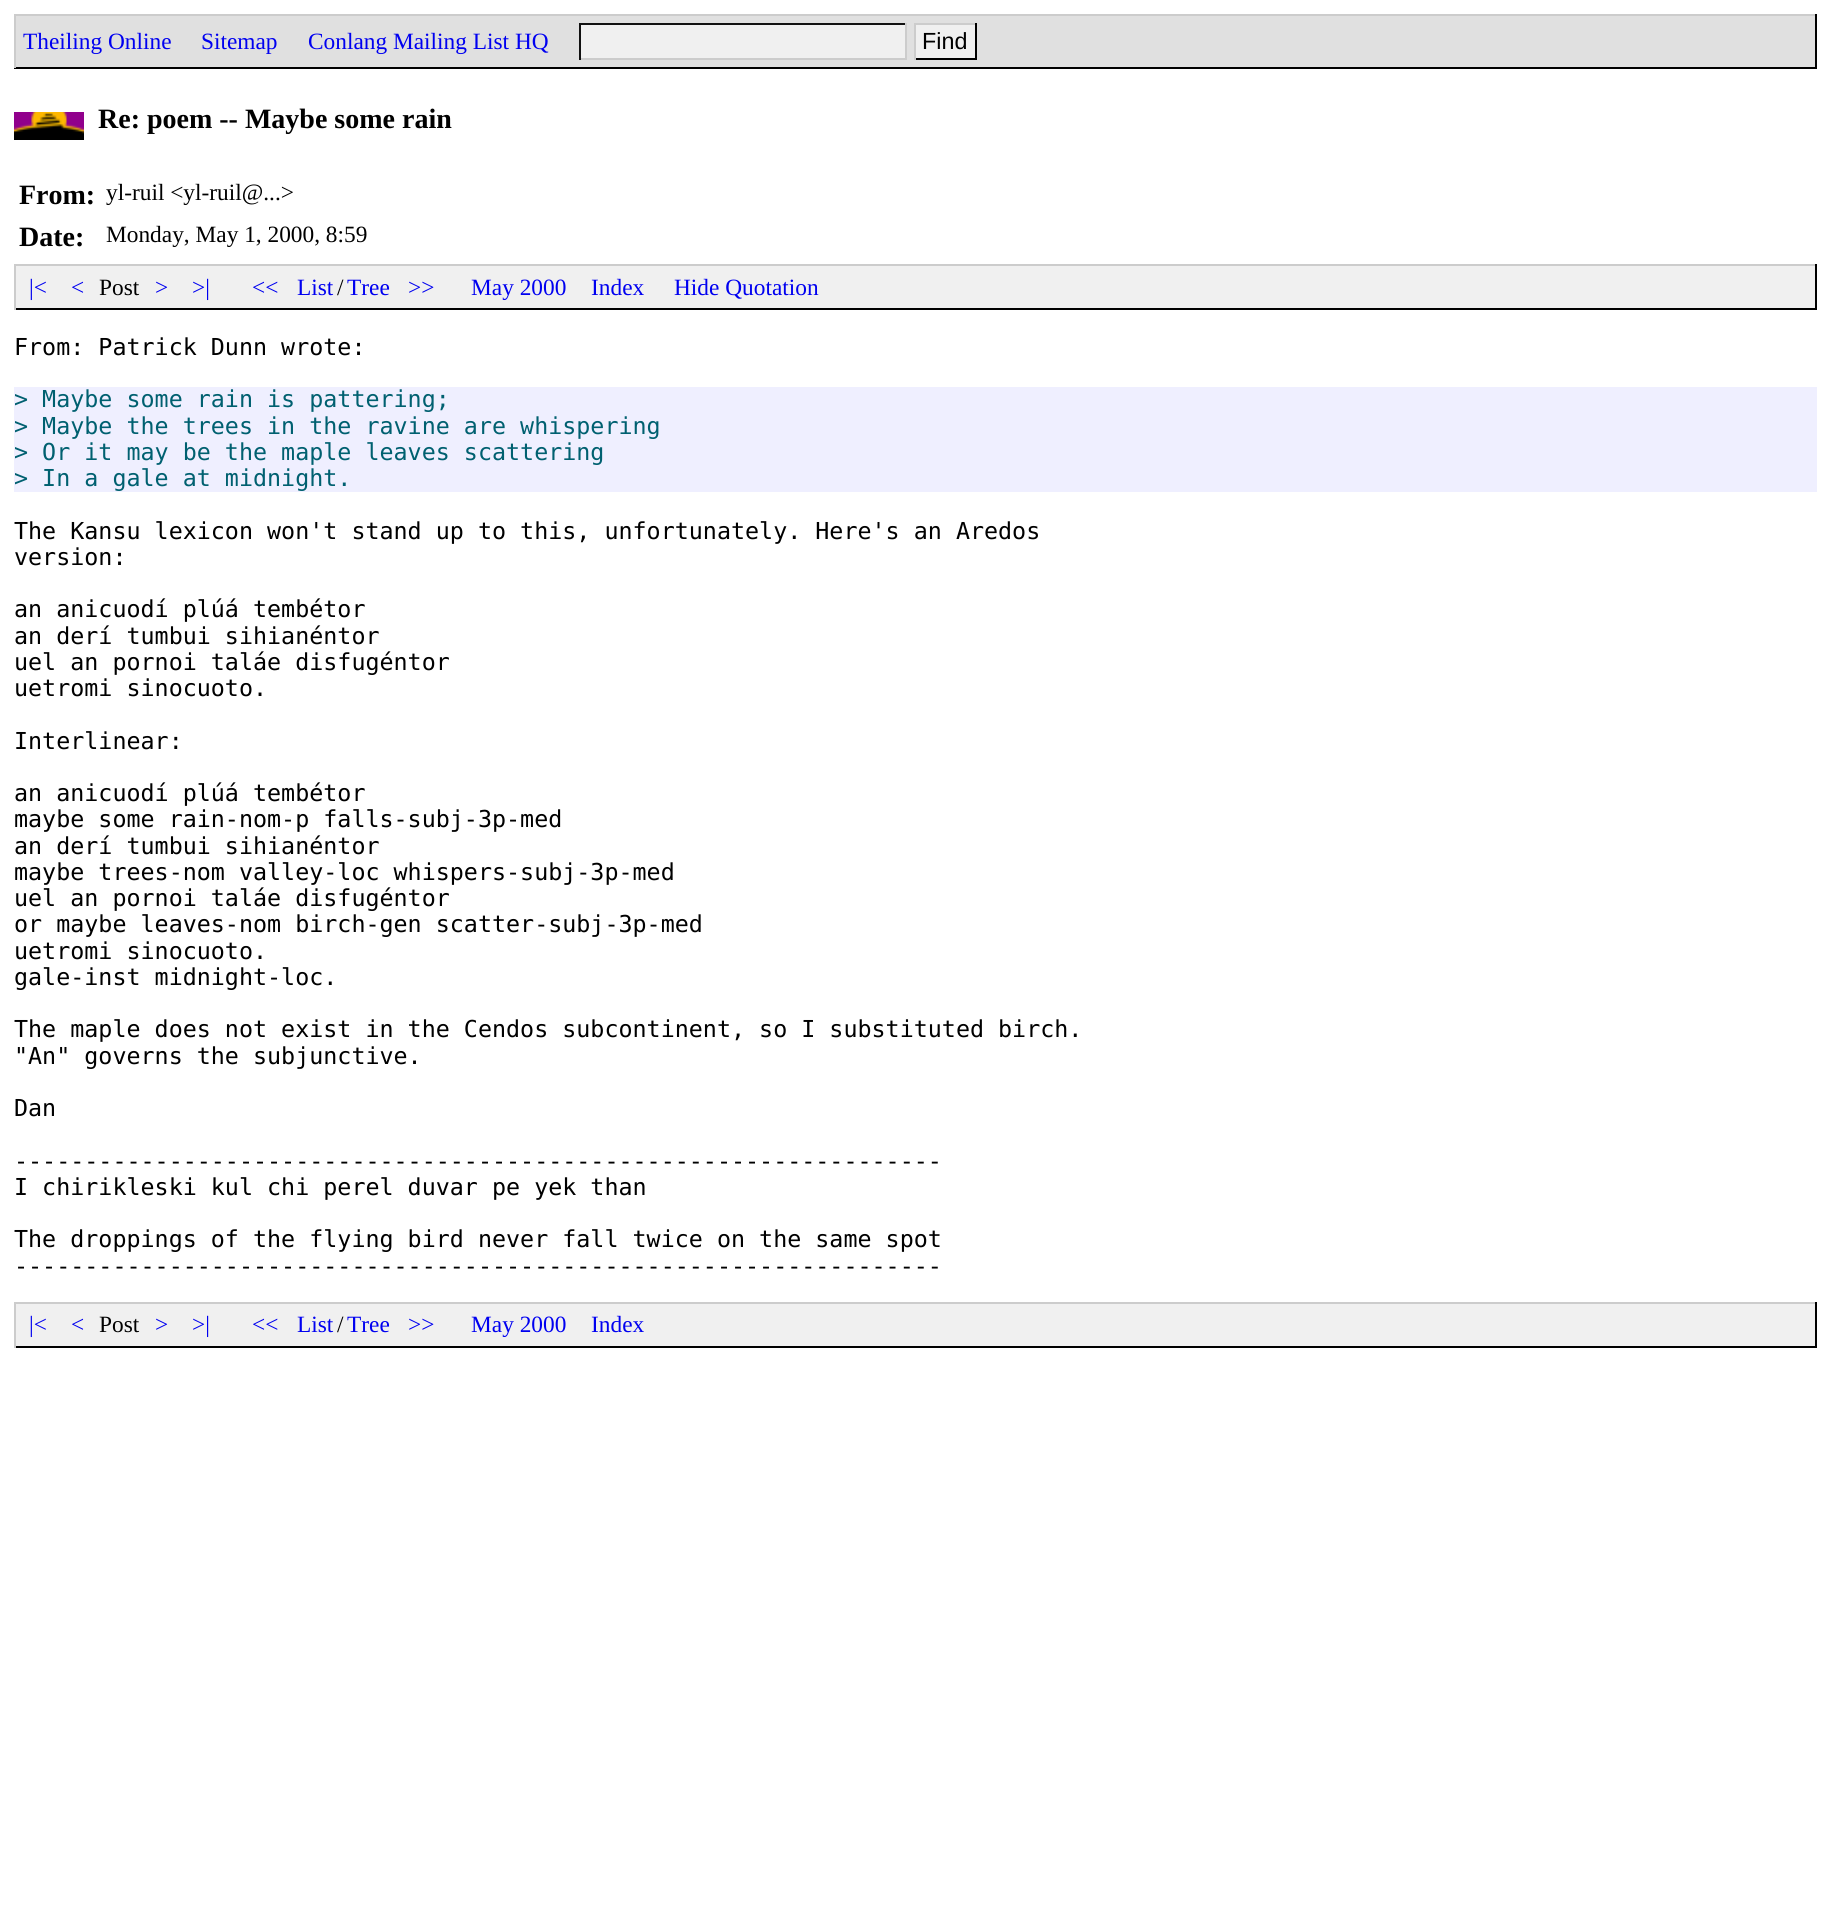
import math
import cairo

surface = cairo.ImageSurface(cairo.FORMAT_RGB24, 1830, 1923)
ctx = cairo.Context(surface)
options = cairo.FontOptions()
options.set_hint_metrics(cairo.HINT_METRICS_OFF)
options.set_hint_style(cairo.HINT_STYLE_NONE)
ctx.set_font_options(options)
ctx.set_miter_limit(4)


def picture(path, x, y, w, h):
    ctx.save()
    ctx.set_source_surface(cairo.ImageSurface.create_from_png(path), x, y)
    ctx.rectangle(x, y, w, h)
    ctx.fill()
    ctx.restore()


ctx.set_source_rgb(1, 1, 1)
ctx.paint()
ctx.set_source_rgb(0.878, 0.878, 0.878)
ctx.rectangle(16, 16, 1799, 51)
ctx.fill()
ctx.set_source_rgb(0.8, 0.8, 0.8)
ctx.rectangle(14, 14, 1803, 2)
ctx.fill()
ctx.set_source_rgb(0, 0, 0)
ctx.rectangle(1815, 14, 2, 54)
ctx.fill()
ctx.rectangle(14, 67, 1803, 2)
ctx.fill()
ctx.set_source_rgb(0.8, 0.8, 0.8)
ctx.rectangle(14, 14, 2, 54)
ctx.fill()
ctx.select_font_face("Liberation Serif")
ctx.set_font_size(23.35)
ctx.set_source_rgb(0, 0, 0.941)
ctx.move_to(23, 49)
ctx.show_text("Theiling Online")
ctx.move_to(201, 49)
ctx.show_text("Sitemap")
ctx.move_to(308, 49)
ctx.show_text("Conlang Mailing List HQ")
ctx.set_source_rgb(0.941, 0.941, 0.941)
ctx.rectangle(581, 25, 324, 33)
ctx.fill()
ctx.set_source_rgb(0.067, 0.067, 0.067)
ctx.rectangle(579, 23, 328, 2)
ctx.fill()
ctx.set_source_rgb(0.8, 0.8, 0.8)
ctx.rectangle(905, 23, 2, 37)
ctx.fill()
ctx.rectangle(579, 58, 328, 2)
ctx.fill()
ctx.set_source_rgb(0.067, 0.067, 0.067)
ctx.rectangle(579, 23, 2, 37)
ctx.fill()
ctx.set_source_rgb(0.941, 0.941, 0.941)
ctx.rectangle(916, 25, 59, 33)
ctx.fill()
ctx.set_source_rgb(0.8, 0.8, 0.8)
ctx.rectangle(914, 23, 63, 2)
ctx.fill()
ctx.set_source_rgb(0, 0, 0)
ctx.rectangle(975, 23, 2, 37)
ctx.fill()
ctx.rectangle(914, 58, 63, 2)
ctx.fill()
ctx.set_source_rgb(0.8, 0.8, 0.8)
ctx.rectangle(914, 23, 2, 37)
ctx.fill()
ctx.select_font_face("Liberation Sans")
ctx.set_source_rgb(0, 0, 0)
ctx.move_to(922, 49)
ctx.show_text("Find")
picture("img1.png", 14, 112, 70, 28)
ctx.select_font_face("Liberation Serif", cairo.FONT_SLANT_NORMAL, cairo.FONT_WEIGHT_BOLD)
ctx.set_font_size(28)
ctx.move_to(98, 128)
ctx.show_text("Re: poem -- Maybe some rain")
ctx.move_to(19, 204)
ctx.show_text("From:")
ctx.select_font_face("Liberation Serif")
ctx.set_font_size(23.35)
ctx.move_to(106, 200)
ctx.show_text("yl-ruil <yl-ruil@...>")
ctx.select_font_face("Liberation Serif", cairo.FONT_SLANT_NORMAL, cairo.FONT_WEIGHT_BOLD)
ctx.set_font_size(28)
ctx.move_to(19, 246)
ctx.show_text("Date:")
ctx.select_font_face("Liberation Serif")
ctx.set_font_size(23.35)
ctx.move_to(106, 242)
ctx.show_text("Monday, May 1, 2000, 8:59")
ctx.set_source_rgb(0.941, 0.941, 0.941)
ctx.rectangle(16, 266, 1799, 42)
ctx.fill()
ctx.set_source_rgb(0.8, 0.8, 0.8)
ctx.rectangle(14, 264, 1803, 2)
ctx.fill()
ctx.set_source_rgb(0, 0, 0)
ctx.rectangle(1815, 264, 2, 46)
ctx.fill()
ctx.rectangle(14, 308, 1803, 2)
ctx.fill()
ctx.set_source_rgb(0.8, 0.8, 0.8)
ctx.rectangle(14, 264, 2, 46)
ctx.fill()
ctx.set_source_rgb(0, 0, 0.941)
ctx.move_to(29, 295)
ctx.show_text("|<")
ctx.move_to(71, 295)
ctx.show_text("<")
ctx.set_source_rgb(0, 0, 0)
ctx.move_to(99, 295)
ctx.show_text("Post")
ctx.set_source_rgb(0, 0, 0.941)
ctx.move_to(155, 295)
ctx.show_text(">")
ctx.move_to(192, 295)
ctx.show_text(">|")
ctx.move_to(252, 295)
ctx.show_text("<<")
ctx.move_to(297, 295)
ctx.show_text("List")
ctx.set_source_rgb(0, 0, 0)
ctx.move_to(337, 295)
ctx.show_text("/")
ctx.set_source_rgb(0, 0, 0.941)
ctx.move_to(347, 295)
ctx.show_text("Tree")
ctx.move_to(408, 295)
ctx.show_text(">>")
ctx.move_to(471, 295)
ctx.show_text("May 2000")
ctx.move_to(591, 295)
ctx.show_text("Index")
ctx.move_to(674, 295)
ctx.show_text("Hide Quotation")
ctx.select_font_face("DejaVu Sans Mono")
ctx.set_source_rgb(0, 0, 0)
ctx.move_to(14, 355)
ctx.show_text("From: Patrick Dunn wrote:")
ctx.set_source_rgb(0.937, 0.937, 1)
ctx.rectangle(14, 387, 1803, 105)
ctx.fill()
ctx.set_source_rgb(0, 0.376, 0.439)
ctx.move_to(14, 407)
ctx.show_text("> Maybe some rain is pattering;")
ctx.move_to(14, 434)
ctx.show_text("> Maybe the trees in the ravine are whispering")
ctx.move_to(14, 460)
ctx.show_text("> Or it may be the maple leaves scattering")
ctx.move_to(14, 486)
ctx.show_text("> In a gale at midnight.")
ctx.set_source_rgb(0, 0, 0)
ctx.move_to(14, 539)
ctx.show_text("The Kansu lexicon won't stand up to this, unfortunately. Here's an Aredos")
ctx.move_to(14, 565)
ctx.show_text("version:")
ctx.move_to(14, 617)
ctx.show_text("an anicuodí plúá tembétor")
ctx.move_to(14, 644)
ctx.show_text("an derí tumbui sihianéntor")
ctx.move_to(14, 670)
ctx.show_text("uel an pornoi taláe disfugéntor")
ctx.move_to(14, 696)
ctx.show_text("uetromi sinocuoto.")
ctx.move_to(14, 749)
ctx.show_text("Interlinear:")
ctx.move_to(14, 801)
ctx.show_text("an anicuodí plúá tembétor")
ctx.move_to(14, 827)
ctx.show_text("maybe some rain-nom-p falls-subj-3p-med")
ctx.move_to(14, 854)
ctx.show_text("an derí tumbui sihianéntor")
ctx.move_to(14, 880)
ctx.show_text("maybe trees-nom valley-loc whispers-subj-3p-med")
ctx.move_to(14, 906)
ctx.show_text("uel an pornoi taláe disfugéntor")
ctx.move_to(14, 932)
ctx.show_text("or maybe leaves-nom birch-gen scatter-subj-3p-med")
ctx.move_to(14, 959)
ctx.show_text("uetromi sinocuoto.")
ctx.move_to(14, 985)
ctx.show_text("gale-inst midnight-loc.")
ctx.move_to(14, 1037)
ctx.show_text("The maple does not exist in the Cendos subcontinent, so I substituted birch.")
ctx.move_to(14, 1064)
ctx.show_text("\"An\" governs the subjunctive.")
ctx.move_to(14, 1116)
ctx.show_text("Dan")
ctx.move_to(14, 1169)
ctx.show_text("------------------------------------------------------------------")
ctx.move_to(14, 1195)
ctx.show_text("I chirikleski kul chi perel duvar pe yek than")
ctx.move_to(14, 1247)
ctx.show_text("The droppings of the flying bird never fall twice on the same spot")
ctx.move_to(14, 1274)
ctx.show_text("------------------------------------------------------------------")
ctx.set_source_rgb(0.941, 0.941, 0.941)
ctx.rectangle(16, 1304, 1799, 42)
ctx.fill()
ctx.set_source_rgb(0.8, 0.8, 0.8)
ctx.rectangle(14, 1302, 1803, 2)
ctx.fill()
ctx.set_source_rgb(0, 0, 0)
ctx.rectangle(1815, 1302, 2, 46)
ctx.fill()
ctx.rectangle(14, 1346, 1803, 2)
ctx.fill()
ctx.set_source_rgb(0.8, 0.8, 0.8)
ctx.rectangle(14, 1302, 2, 46)
ctx.fill()
ctx.select_font_face("Liberation Serif")
ctx.set_source_rgb(0, 0, 0.941)
ctx.move_to(29, 1332)
ctx.show_text("|<")
ctx.move_to(71, 1332)
ctx.show_text("<")
ctx.set_source_rgb(0, 0, 0)
ctx.move_to(99, 1332)
ctx.show_text("Post")
ctx.set_source_rgb(0, 0, 0.941)
ctx.move_to(155, 1332)
ctx.show_text(">")
ctx.move_to(192, 1332)
ctx.show_text(">|")
ctx.move_to(252, 1332)
ctx.show_text("<<")
ctx.move_to(297, 1332)
ctx.show_text("List")
ctx.set_source_rgb(0, 0, 0)
ctx.move_to(337, 1332)
ctx.show_text("/")
ctx.set_source_rgb(0, 0, 0.941)
ctx.move_to(347, 1332)
ctx.show_text("Tree")
ctx.move_to(408, 1332)
ctx.show_text(">>")
ctx.move_to(471, 1332)
ctx.show_text("May 2000")
ctx.move_to(591, 1332)
ctx.show_text("Index")
surface.write_to_png("page.png")
